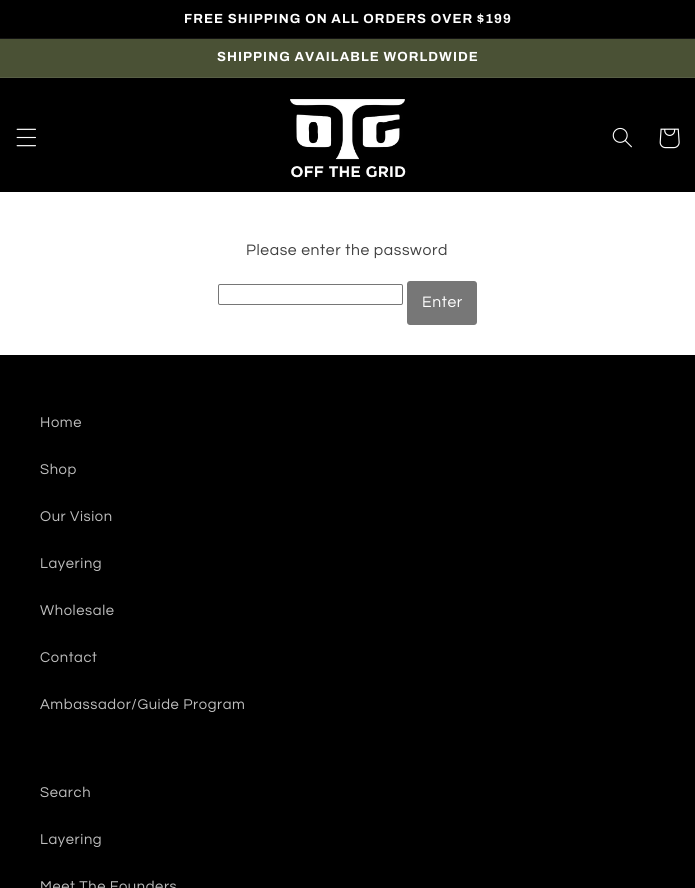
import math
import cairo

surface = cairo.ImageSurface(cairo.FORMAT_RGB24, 695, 888)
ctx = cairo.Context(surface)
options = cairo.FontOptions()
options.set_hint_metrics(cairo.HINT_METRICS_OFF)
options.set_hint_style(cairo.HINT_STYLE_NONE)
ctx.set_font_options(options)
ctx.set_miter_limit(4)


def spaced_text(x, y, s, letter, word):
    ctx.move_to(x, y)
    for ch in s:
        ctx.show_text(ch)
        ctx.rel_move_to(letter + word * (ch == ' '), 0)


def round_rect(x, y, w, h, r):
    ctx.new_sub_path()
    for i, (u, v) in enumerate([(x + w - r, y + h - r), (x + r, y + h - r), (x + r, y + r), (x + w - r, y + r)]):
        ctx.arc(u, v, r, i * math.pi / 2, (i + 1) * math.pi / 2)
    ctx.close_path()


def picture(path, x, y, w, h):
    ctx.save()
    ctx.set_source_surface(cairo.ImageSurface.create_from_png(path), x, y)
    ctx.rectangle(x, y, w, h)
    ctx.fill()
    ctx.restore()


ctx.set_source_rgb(1, 1, 1)
ctx.paint()
ctx.set_source_rgb(0, 0, 0)
ctx.rectangle(0, 0, 695, 38)
ctx.fill()
ctx.set_source_rgb(0.078, 0.078, 0.078)
ctx.rectangle(0, 38, 695, 1)
ctx.fill()
ctx.select_font_face("Archivo", cairo.FONT_SLANT_NORMAL, cairo.FONT_WEIGHT_BOLD)
ctx.set_font_size(13.2)
ctx.set_source_rgb(1, 1, 1)
spaced_text(184, 23, "FREE SHIPPING ON ALL ORDERS OVER $199", 1.05, 0)
ctx.set_source_rgb(0.29, 0.318, 0.208)
ctx.rectangle(0, 39, 695, 38)
ctx.fill()
ctx.set_source_rgb(0.345, 0.373, 0.271)
ctx.rectangle(0, 77, 695, 1)
ctx.fill()
ctx.set_source_rgb(1, 1, 1)
spaced_text(217, 61, "SHIPPING AVAILABLE WORLDWIDE", 1.05, 0)
ctx.set_source_rgb(0, 0, 0)
ctx.rectangle(0, 78, 695, 114)
ctx.fill()
picture("img1.png", 16, 128, 20, 19)
picture("img2.png", 290, 99, 116, 79)
picture("img3.png", 612, 127, 20, 21)
picture("img4.png", 659, 128, 21, 21)
ctx.select_font_face("Questrial")
ctx.set_font_size(15.75)
ctx.set_source_rgb(0.251, 0.251, 0.251)
spaced_text(246, 255, "Please enter the password", 0.6, 0)
round_rect(218.5, 284.5, 184, 20, 1.5)
ctx.set_source_rgb(0.463, 0.463, 0.463)
ctx.set_line_width(1)
ctx.stroke()
ctx.set_source_rgb(0.467, 0.467, 0.467)
round_rect(407, 281, 70, 44, 3)
ctx.fill()
ctx.set_source_rgb(1, 1, 1)
spaced_text(422, 307, "Enter", 0.6, 0)
ctx.set_source_rgb(0, 0, 0)
ctx.rectangle(0, 355, 695, 533)
ctx.fill()
ctx.set_font_size(14.75)
ctx.set_source_rgb(0.749, 0.749, 0.749)
spaced_text(40, 427, "Home", 0.6, 0)
spaced_text(40, 474, "Shop", 0.6, 0)
spaced_text(40, 521, "Our Vision", 0.6, 0)
spaced_text(40, 568, "Layering", 0.6, 0)
spaced_text(40, 615, "Wholesale", 0.6, 0)
spaced_text(40, 662, "Contact", 0.6, 0)
spaced_text(40, 709, "Ambassador/Guide Program", 0.6, 0)
spaced_text(40, 797, "Search", 0.6, 0)
spaced_text(40, 844, "Layering", 0.6, 0)
spaced_text(40, 891, "Meet The Founders", 0.6, 0)
surface.write_to_png("page.png")
